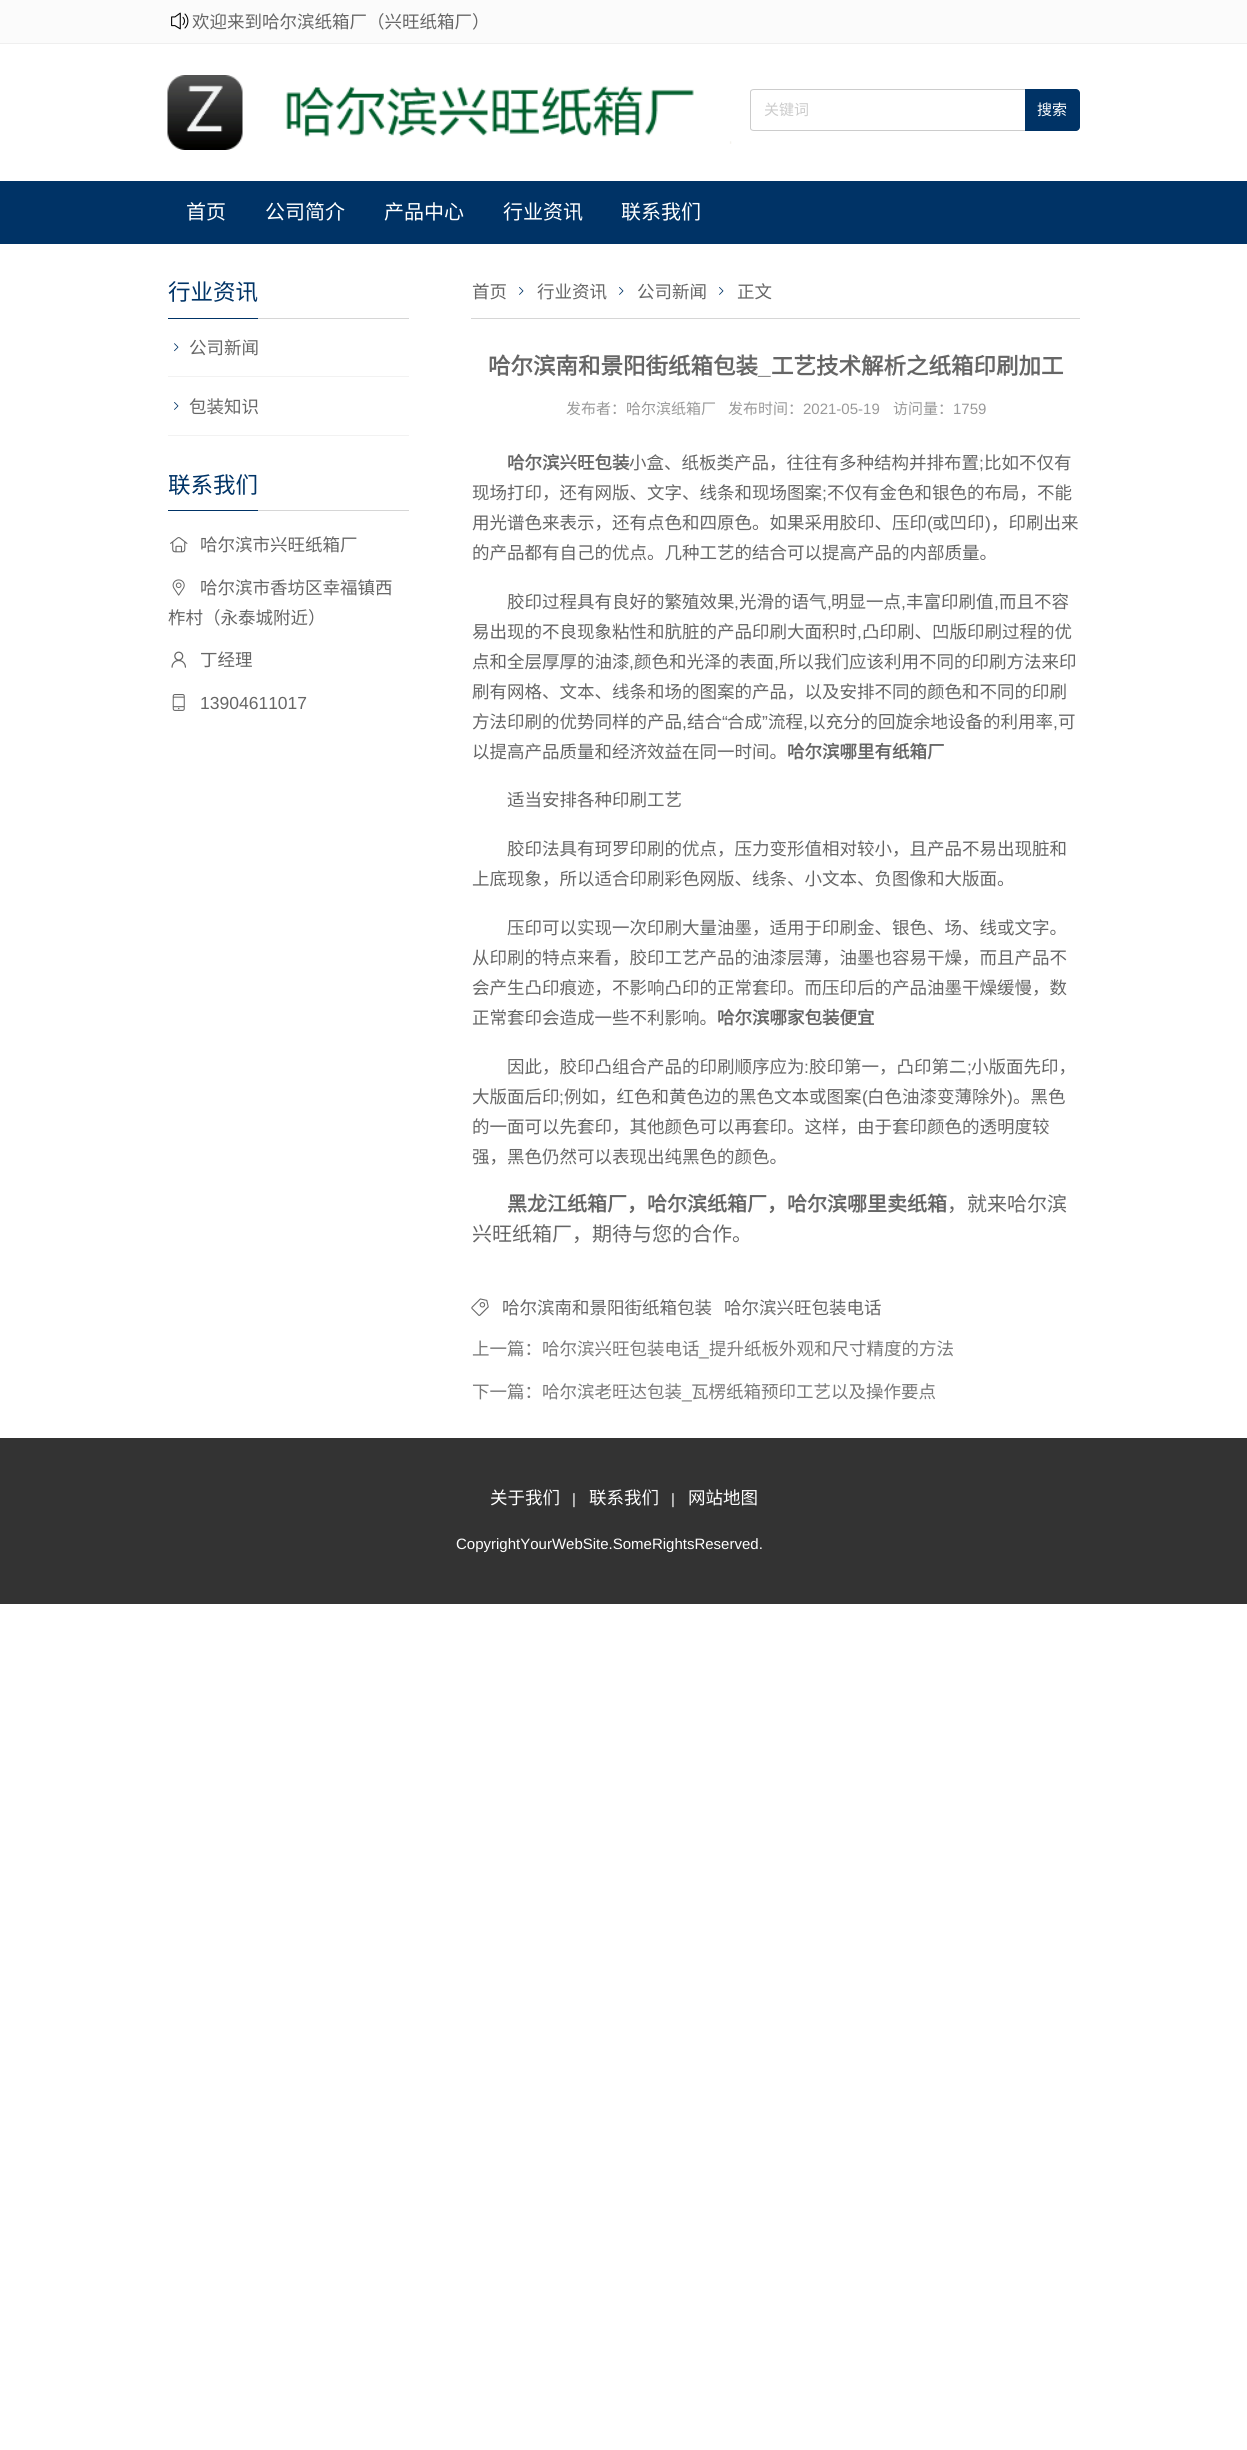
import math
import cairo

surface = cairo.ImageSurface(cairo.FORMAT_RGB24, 1247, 2450)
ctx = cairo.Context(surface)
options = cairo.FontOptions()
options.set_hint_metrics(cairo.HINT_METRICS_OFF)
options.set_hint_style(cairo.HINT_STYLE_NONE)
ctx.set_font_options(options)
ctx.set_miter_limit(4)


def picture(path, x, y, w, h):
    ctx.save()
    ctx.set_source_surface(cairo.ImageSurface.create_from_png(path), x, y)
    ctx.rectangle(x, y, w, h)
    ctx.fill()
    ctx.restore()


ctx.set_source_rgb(1, 1, 1)
ctx.paint()
ctx.set_source_rgb(0.984, 0.984, 0.984)
ctx.rectangle(0, 0, 1247, 43)
ctx.fill()
ctx.set_source_rgb(0.937, 0.937, 0.937)
ctx.rectangle(0, 43, 1247, 1)
ctx.fill()
picture("img1.png", 171, 12, 18, 18)
ctx.select_font_face("Noto Sans CJK SC")
ctx.set_font_size(17.5)
ctx.set_source_rgb(0.4, 0.4, 0.4)
ctx.move_to(192, 28)
ctx.show_text("欢迎来到哈尔滨纸箱厂（兴旺纸箱厂）")
picture("img2.png", 167, 75, 565, 75)
ctx.set_source_rgb(0.8, 0.8, 0.8)
ctx.set_fill_rule(cairo.FILL_RULE_EVEN_ODD)
ctx.new_path()
ctx.move_to(754, 89)
ctx.line_to(1025, 89)
ctx.line_to(1025, 131)
ctx.line_to(754, 131)
ctx.curve_to(752, 131, 750, 130, 750, 128)
ctx.line_to(750, 92)
ctx.curve_to(750, 90, 752, 89, 754, 89)
ctx.close_path()
ctx.move_to(754, 90)
ctx.line_to(1025, 90)
ctx.line_to(1025, 130)
ctx.line_to(754, 130)
ctx.curve_to(752, 130, 751, 129, 751, 128)
ctx.line_to(751, 92)
ctx.curve_to(751, 91, 752, 90, 754, 90)
ctx.close_path()
ctx.fill()
ctx.set_font_size(15)
ctx.move_to(764, 115)
ctx.show_text("关键词")
ctx.set_source_rgb(0, 0.2, 0.4)
ctx.new_path()
ctx.move_to(1025, 89)
ctx.line_to(1076, 89)
ctx.curve_to(1078, 89, 1080, 91, 1080, 93)
ctx.line_to(1080, 127)
ctx.curve_to(1080, 129, 1078, 131, 1076, 131)
ctx.line_to(1025, 131)
ctx.close_path()
ctx.fill()
ctx.set_source_rgb(1, 1, 1)
ctx.move_to(1037, 115)
ctx.show_text("搜索")
ctx.set_source_rgb(0, 0.2, 0.4)
ctx.rectangle(0, 181, 1247, 63)
ctx.fill()
ctx.set_font_size(20)
ctx.set_source_rgb(1, 1, 1)
ctx.move_to(186, 219)
ctx.show_text("首页")
ctx.move_to(265, 219)
ctx.show_text("公司简介")
ctx.move_to(384, 219)
ctx.show_text("产品中心")
ctx.move_to(503, 219)
ctx.show_text("行业资讯")
ctx.move_to(621, 219)
ctx.show_text("联系我们")
ctx.set_source_rgb(0.839, 0.839, 0.839)
ctx.rectangle(258, 318, 151, 1)
ctx.fill()
ctx.set_source_rgb(0, 0.2, 0.4)
ctx.rectangle(168, 318, 90, 1)
ctx.fill()
ctx.set_font_size(22.5)
ctx.move_to(168, 300)
ctx.show_text("行业资讯")
ctx.set_source_rgb(0.949, 0.949, 0.949)
ctx.rectangle(168, 376, 241, 1)
ctx.fill()
picture("img3.png", 174, 343, 5, 9)
ctx.set_font_size(17.5)
ctx.set_source_rgb(0.4, 0.4, 0.4)
ctx.move_to(189, 354)
ctx.show_text("公司新闻")
ctx.set_source_rgb(0.949, 0.949, 0.949)
ctx.rectangle(168, 435, 241, 1)
ctx.fill()
picture("img4.png", 174, 402, 5, 8)
ctx.set_source_rgb(0.4, 0.4, 0.4)
ctx.move_to(189, 413)
ctx.show_text("包装知识")
ctx.set_source_rgb(0.839, 0.839, 0.839)
ctx.rectangle(258, 510, 151, 1)
ctx.fill()
ctx.set_source_rgb(0, 0.2, 0.4)
ctx.rectangle(168, 510, 90, 1)
ctx.fill()
ctx.set_font_size(22.5)
ctx.move_to(168, 493)
ctx.show_text("联系我们")
picture("img5.png", 170, 537, 18, 16)
ctx.set_font_size(17.5)
ctx.set_source_rgb(0.4, 0.4, 0.4)
ctx.move_to(200, 551)
ctx.show_text("哈尔滨市兴旺纸箱厂")
picture("img6.png", 172, 579, 13, 17)
ctx.move_to(200, 594)
ctx.show_text("哈尔滨市香坊区幸福镇西")
ctx.move_to(168, 624)
ctx.show_text("柞村（永泰城附近）")
picture("img7.png", 171, 651, 15, 17)
ctx.move_to(200, 666)
ctx.show_text("丁经理")
picture("img8.png", 172, 694, 13, 17)
ctx.select_font_face("Liberation Sans")
ctx.move_to(200, 709)
ctx.show_text("13904611017")
ctx.set_source_rgb(0.839, 0.839, 0.839)
ctx.rectangle(471, 318, 609, 1)
ctx.fill()
ctx.select_font_face("Noto Sans CJK SC")
ctx.set_source_rgb(0.4, 0.4, 0.4)
ctx.move_to(472, 298)
ctx.show_text("首页")
picture("img4.png", 519, 287, 5, 8)
ctx.move_to(537, 298)
ctx.show_text("行业资讯")
picture("img4.png", 619, 287, 5, 8)
ctx.move_to(637, 298)
ctx.show_text("公司新闻")
picture("img4.png", 719, 287, 5, 8)
ctx.move_to(737, 298)
ctx.show_text("正文")
ctx.select_font_face("Noto Sans CJK SC", cairo.FONT_SLANT_NORMAL, cairo.FONT_WEIGHT_BOLD)
ctx.set_font_size(22.5)
ctx.move_to(488, 374)
ctx.show_text("哈尔滨南和景阳街纸箱包装")
ctx.select_font_face("Liberation Sans", cairo.FONT_SLANT_NORMAL, cairo.FONT_WEIGHT_BOLD)
ctx.move_to(758, 374)
ctx.show_text("_")
ctx.select_font_face("Noto Sans CJK SC", cairo.FONT_SLANT_NORMAL, cairo.FONT_WEIGHT_BOLD)
ctx.move_to(771, 374)
ctx.show_text("工艺技术解析之纸箱印刷加工")
ctx.select_font_face("Noto Sans CJK SC")
ctx.set_font_size(15)
ctx.set_source_rgb(0.6, 0.6, 0.6)
ctx.move_to(566, 414)
ctx.show_text("发布者：哈尔滨纸箱厂")
ctx.move_to(728, 414)
ctx.show_text("发布时间：")
ctx.select_font_face("Liberation Sans")
ctx.move_to(803, 414)
ctx.show_text("2021-05-19")
ctx.select_font_face("Noto Sans CJK SC")
ctx.move_to(893, 414)
ctx.show_text("访问量：")
ctx.select_font_face("Liberation Sans")
ctx.move_to(953, 414)
ctx.show_text("1759")
ctx.select_font_face("Noto Sans CJK SC", cairo.FONT_SLANT_NORMAL, cairo.FONT_WEIGHT_BOLD)
ctx.set_font_size(17.5)
ctx.set_source_rgb(0.4, 0.4, 0.4)
ctx.move_to(507, 469)
ctx.show_text("哈尔滨兴旺包装")
ctx.select_font_face("Noto Sans CJK SC")
ctx.move_to(629, 469)
ctx.show_text("小盒、纸板类产品，往往有多种结构并排布置")
ctx.select_font_face("Liberation Sans")
ctx.move_to(979, 469)
ctx.show_text(";")
ctx.select_font_face("Noto Sans CJK SC")
ctx.move_to(984, 469)
ctx.show_text("比如不仅有")
ctx.move_to(472, 499)
ctx.show_text("现场打印，还有网版、文字、线条和现场图案")
ctx.select_font_face("Liberation Sans")
ctx.move_to(822, 499)
ctx.show_text(";")
ctx.select_font_face("Noto Sans CJK SC")
ctx.move_to(827, 499)
ctx.show_text("不仅有金色和银色的布局，不能")
ctx.move_to(472, 529)
ctx.show_text("用光谱色来表示，还有点色和四原色。如果采用胶印、压印")
ctx.select_font_face("Liberation Sans")
ctx.move_to(927, 529)
ctx.show_text("(")
ctx.select_font_face("Noto Sans CJK SC")
ctx.move_to(932, 529)
ctx.show_text("或凹印")
ctx.select_font_face("Liberation Sans")
ctx.move_to(985, 529)
ctx.show_text(")")
ctx.select_font_face("Noto Sans CJK SC")
ctx.move_to(991, 529)
ctx.show_text("，印刷出来")
ctx.move_to(472, 559)
ctx.show_text("的产品都有自己的优点。几种工艺的结合可以提高产品的内部质量。")
ctx.move_to(507, 608)
ctx.show_text("胶印过程具有良好的繁殖效果")
ctx.select_font_face("Liberation Sans")
ctx.move_to(734, 608)
ctx.show_text(",")
ctx.select_font_face("Noto Sans CJK SC")
ctx.move_to(739, 608)
ctx.show_text("光滑的语气")
ctx.select_font_face("Liberation Sans")
ctx.move_to(827, 608)
ctx.show_text(",")
ctx.select_font_face("Noto Sans CJK SC")
ctx.move_to(831, 608)
ctx.show_text("明显一点")
ctx.select_font_face("Liberation Sans")
ctx.move_to(901, 608)
ctx.show_text(",")
ctx.select_font_face("Noto Sans CJK SC")
ctx.move_to(906, 608)
ctx.show_text("丰富印刷值")
ctx.select_font_face("Liberation Sans")
ctx.move_to(994, 608)
ctx.show_text(",")
ctx.select_font_face("Noto Sans CJK SC")
ctx.move_to(999, 608)
ctx.show_text("而且不容")
ctx.move_to(472, 638)
ctx.show_text("易出现的不良现象粘性和肮脏的产品印刷大面积时")
ctx.select_font_face("Liberation Sans")
ctx.move_to(857, 638)
ctx.show_text(",")
ctx.select_font_face("Noto Sans CJK SC")
ctx.move_to(862, 638)
ctx.show_text("凸印刷、凹版印刷过程的优")
ctx.move_to(472, 668)
ctx.show_text("点和全层厚厚的油漆")
ctx.select_font_face("Liberation Sans")
ctx.move_to(629, 668)
ctx.show_text(",")
ctx.select_font_face("Noto Sans CJK SC")
ctx.move_to(634, 668)
ctx.show_text("颜色和光泽的表面")
ctx.select_font_face("Liberation Sans")
ctx.move_to(774, 668)
ctx.show_text(",")
ctx.select_font_face("Noto Sans CJK SC")
ctx.move_to(779, 668)
ctx.show_text("所以我们应该利用不同的印刷方法来印")
ctx.move_to(472, 698)
ctx.show_text("刷有网格、文本、线条和场的图案的产品，以及安排不同的颜色和不同的印刷")
ctx.move_to(472, 728)
ctx.show_text("方法印刷的优势同样的产品")
ctx.move_to(687, 728)
ctx.show_text("结合")
ctx.select_font_face("Liberation Sans")
ctx.move_to(722, 728)
ctx.show_text("“")
ctx.select_font_face("Noto Sans CJK SC")
ctx.move_to(727, 728)
ctx.show_text("合成")
ctx.select_font_face("Liberation Sans")
ctx.move_to(762, 728)
ctx.show_text("”")
ctx.select_font_face("Noto Sans CJK SC")
ctx.move_to(768, 728)
ctx.show_text("流程")
ctx.move_to(808, 728)
ctx.show_text("以充分的回旋余地设备的利用率")
ctx.move_to(1058, 728)
ctx.show_text("可")
ctx.select_font_face("Liberation Sans")
ctx.move_to(682, 728)
ctx.show_text(",")
ctx.move_to(803, 728)
ctx.show_text(",")
ctx.move_to(1053, 728)
ctx.show_text(",")
ctx.select_font_face("Noto Sans CJK SC")
ctx.move_to(472, 758)
ctx.show_text("以提高产品质量和经济效益在同一时间。")
ctx.select_font_face("Noto Sans CJK SC", cairo.FONT_SLANT_NORMAL, cairo.FONT_WEIGHT_BOLD)
ctx.move_to(787, 758)
ctx.show_text("哈尔滨哪里有纸箱厂")
ctx.select_font_face("Noto Sans CJK SC")
ctx.move_to(507, 806)
ctx.show_text("适当安排各种印刷工艺")
ctx.move_to(507, 855)
ctx.show_text("胶印法具有珂罗印刷的优点，压力变形值相对较小，且产品不易出现脏和")
ctx.move_to(472, 885)
ctx.show_text("上底现象，所以适合印刷彩色网版、线条、小文本、负图像和大版面。")
ctx.move_to(507, 934)
ctx.show_text("压印可以实现一次印刷大量油墨，适用于印刷金、银色、场、线或文字。")
ctx.move_to(472, 964)
ctx.show_text("从印刷的特点来看，胶印工艺产品的油漆层薄，油墨也容易干燥，而且产品不")
ctx.move_to(472, 994)
ctx.show_text("会产生凸印痕迹，不影响凸印的正常套印。而压印后的产品油墨干燥缓慢，数")
ctx.move_to(472, 1024)
ctx.show_text("正常套印会造成一些不利影响。")
ctx.select_font_face("Noto Sans CJK SC", cairo.FONT_SLANT_NORMAL, cairo.FONT_WEIGHT_BOLD)
ctx.move_to(717, 1024)
ctx.show_text("哈尔滨哪家包装便宜")
ctx.select_font_face("Noto Sans CJK SC")
ctx.move_to(507, 1073)
ctx.show_text("因此，胶印凸组合产品的印刷顺序应为")
ctx.select_font_face("Liberation Sans")
ctx.move_to(804, 1073)
ctx.show_text(":")
ctx.select_font_face("Noto Sans CJK SC")
ctx.move_to(809, 1073)
ctx.show_text("胶印第一，凸印第二")
ctx.select_font_face("Liberation Sans")
ctx.move_to(967, 1073)
ctx.show_text(";")
ctx.select_font_face("Noto Sans CJK SC")
ctx.move_to(971, 1073)
ctx.show_text("小版面先印，")
ctx.move_to(472, 1103)
ctx.show_text("大版面后印")
ctx.select_font_face("Liberation Sans")
ctx.move_to(559, 1103)
ctx.show_text(";")
ctx.select_font_face("Noto Sans CJK SC")
ctx.move_to(564, 1103)
ctx.show_text("例如，红色和黄色边的黑色文本或图案")
ctx.select_font_face("Liberation Sans")
ctx.move_to(862, 1103)
ctx.show_text("(")
ctx.select_font_face("Noto Sans CJK SC")
ctx.move_to(867, 1103)
ctx.show_text("白色油漆变薄除外")
ctx.select_font_face("Liberation Sans")
ctx.move_to(1007, 1103)
ctx.show_text(")")
ctx.select_font_face("Noto Sans CJK SC")
ctx.move_to(1013, 1103)
ctx.show_text("。黑色")
ctx.move_to(472, 1133)
ctx.show_text("的一面可以先套印，其他颜色可以再套印。这样，由于套印颜色的透明度较")
ctx.move_to(472, 1163)
ctx.show_text("强，黑色仍然可以表现出纯黑色的颜色。")
ctx.select_font_face("Noto Sans CJK SC", cairo.FONT_SLANT_NORMAL, cairo.FONT_WEIGHT_BOLD)
ctx.set_font_size(20)
ctx.move_to(507, 1211)
ctx.show_text("黑龙江纸箱厂，哈尔滨纸箱厂，哈尔滨哪里卖纸箱")
ctx.select_font_face("Noto Sans CJK SC")
ctx.move_to(947, 1211)
ctx.show_text("，就来哈尔滨")
ctx.move_to(472, 1241)
ctx.show_text("兴旺纸箱厂，期待与您的合作。")
picture("img9.png", 471, 1298, 18, 18)
ctx.set_font_size(17.5)
ctx.move_to(502, 1314)
ctx.show_text("哈尔滨南和景阳街纸箱包装")
ctx.move_to(724, 1314)
ctx.show_text("哈尔滨兴旺包装电话")
ctx.set_source_rgb(0.475, 0.475, 0.475)
ctx.move_to(472, 1355)
ctx.show_text("上一篇：哈尔滨兴旺包装电话")
ctx.move_to(709, 1355)
ctx.show_text("提升纸板外观和尺寸精度的方法")
ctx.select_font_face("Liberation Sans")
ctx.move_to(699, 1355)
ctx.show_text("_")
ctx.select_font_face("Noto Sans CJK SC")
ctx.move_to(472, 1398)
ctx.show_text("下一篇：哈尔滨老旺达包装")
ctx.move_to(691, 1398)
ctx.show_text("瓦楞纸箱预印工艺以及操作要点")
ctx.select_font_face("Liberation Sans")
ctx.move_to(682, 1398)
ctx.show_text("_")
ctx.set_source_rgb(0.2, 0.2, 0.2)
ctx.rectangle(0, 1438, 1247, 166)
ctx.fill()
ctx.select_font_face("Noto Sans CJK SC")
ctx.set_source_rgb(1, 1, 1)
ctx.move_to(490, 1504)
ctx.show_text("关于我们")
ctx.select_font_face("Liberation Sans")
ctx.set_font_size(15)
ctx.move_to(572, 1504)
ctx.show_text("|")
ctx.select_font_face("Noto Sans CJK SC")
ctx.set_font_size(17.5)
ctx.move_to(589, 1504)
ctx.show_text("联系我们")
ctx.select_font_face("Liberation Sans")
ctx.set_font_size(15)
ctx.move_to(671, 1504)
ctx.show_text("|")
ctx.select_font_face("Noto Sans CJK SC")
ctx.set_font_size(17.5)
ctx.move_to(688, 1504)
ctx.show_text("网站地图")
ctx.select_font_face("Liberation Sans")
ctx.set_font_size(15)
ctx.move_to(456, 1549)
ctx.show_text("CopyrightYourWebSite.SomeRightsReserved.")
surface.write_to_png("page.png")
